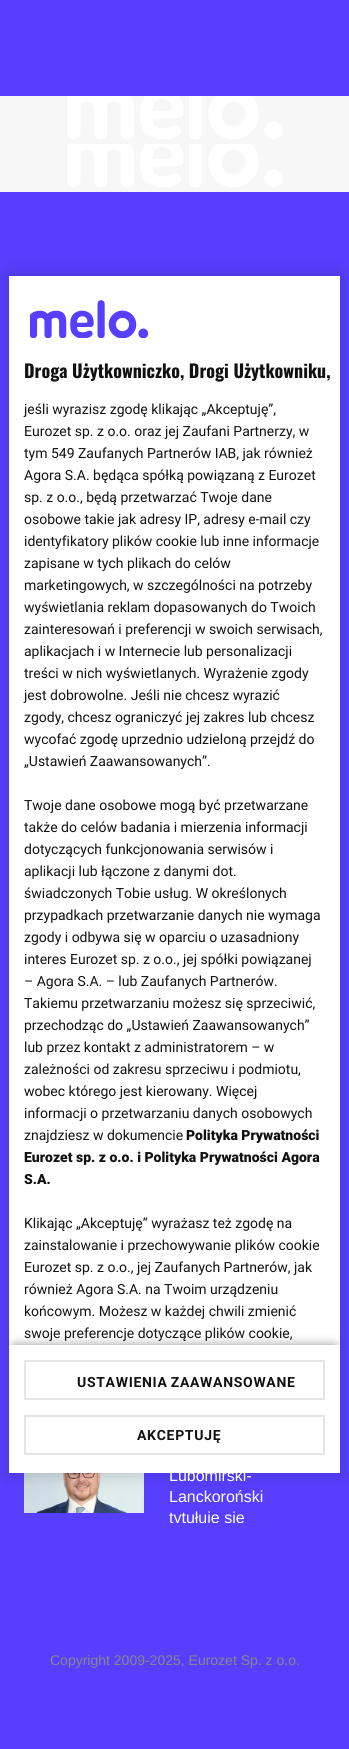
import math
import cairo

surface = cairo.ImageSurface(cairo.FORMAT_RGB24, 349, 1749)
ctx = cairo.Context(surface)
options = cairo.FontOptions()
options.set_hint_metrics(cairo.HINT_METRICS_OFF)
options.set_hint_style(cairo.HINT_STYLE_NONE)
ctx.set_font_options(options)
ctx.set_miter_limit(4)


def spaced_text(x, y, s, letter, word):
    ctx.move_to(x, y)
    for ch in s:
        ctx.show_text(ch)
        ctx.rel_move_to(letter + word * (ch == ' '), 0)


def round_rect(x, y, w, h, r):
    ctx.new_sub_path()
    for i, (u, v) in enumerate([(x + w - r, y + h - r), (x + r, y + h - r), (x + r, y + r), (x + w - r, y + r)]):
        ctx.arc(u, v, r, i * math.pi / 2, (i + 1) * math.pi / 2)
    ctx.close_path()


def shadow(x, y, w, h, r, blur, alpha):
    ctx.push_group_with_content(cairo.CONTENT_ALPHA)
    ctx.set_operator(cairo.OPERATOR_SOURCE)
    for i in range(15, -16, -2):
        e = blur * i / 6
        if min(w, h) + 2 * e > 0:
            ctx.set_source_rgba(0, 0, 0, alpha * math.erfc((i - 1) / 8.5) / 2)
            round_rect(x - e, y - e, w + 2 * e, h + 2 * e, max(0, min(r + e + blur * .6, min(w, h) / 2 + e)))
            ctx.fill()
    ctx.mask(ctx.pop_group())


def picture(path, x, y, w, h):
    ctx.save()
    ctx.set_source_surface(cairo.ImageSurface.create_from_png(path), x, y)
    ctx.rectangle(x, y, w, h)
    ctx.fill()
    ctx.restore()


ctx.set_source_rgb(0.337, 0.247, 1)
ctx.paint()
ctx.set_source_rgb(0.965, 0.965, 0.965)
ctx.rectangle(0, 96, 349, 96)
ctx.fill()
picture("img1.png", 67, 96, 216, 44)
picture("img1.png", 67, 144, 216, 44)
picture("img3.png", 24, 1473, 120, 40)
ctx.set_source_rgb(0, 0, 0)
shadow(9, 276, 331, 1197, 0, 9, 0.2)
ctx.set_source_rgb(1, 1, 1)
ctx.rectangle(9, 276, 331, 1197)
ctx.fill()
picture("img2.png", 30, 300, 118, 38)
ctx.select_font_face("Oswald", cairo.FONT_SLANT_NORMAL, cairo.FONT_WEIGHT_BOLD)
ctx.set_font_size(18)
ctx.set_source_rgb(0.067, 0.067, 0.067)
ctx.move_to(24, 378)
ctx.show_text("Droga Użytkowniczko, Drogi Użytkowniku,")
ctx.select_font_face("Roboto")
ctx.set_font_size(14)
ctx.move_to(24, 414)
ctx.show_text("jeśli wyrazisz zgodę klikając „Akceptuję”,")
ctx.move_to(24, 436)
ctx.show_text("Eurozet sp. z o.o. oraz jej Zaufani Partnerzy, w")
ctx.move_to(24, 458)
ctx.show_text("tym 549 Zaufanych Partnerów IAB, jak również")
ctx.move_to(24, 480)
ctx.show_text("Agora S.A. będąca spółką powiązaną z Eurozet")
ctx.move_to(24, 502)
ctx.show_text("sp. z o.o., będą przetwarzać Twoje dane")
ctx.move_to(24, 524)
ctx.show_text("osobowe takie jak adresy IP, adresy e-mail czy")
ctx.move_to(24, 546)
ctx.show_text("identyfikatory plików cookie lub inne informacje")
ctx.move_to(24, 568)
ctx.show_text("zapisane w tych plikach do celów")
ctx.move_to(24, 590)
ctx.show_text("marketingowych, w szczególności na potrzeby")
ctx.move_to(24, 612)
ctx.show_text("wyświetlania reklam dopasowanych do Twoich")
ctx.move_to(24, 634)
ctx.show_text("zainteresowań i preferencji w swoich serwisach,")
ctx.move_to(24, 656)
ctx.show_text("aplikacjach i w Internecie lub personalizacji")
ctx.move_to(24, 678)
ctx.show_text("treści w nich wyświetlanych. Wyrażenie zgody")
ctx.move_to(24, 700)
ctx.show_text("jest dobrowolne. Jeśli nie chcesz wyrazić")
ctx.move_to(24, 722)
ctx.show_text("zgody, chcesz ograniczyć jej zakres lub chcesz")
ctx.move_to(24, 744)
ctx.show_text("wycofać zgodę uprzednio udzieloną przejdź do")
ctx.move_to(24, 766)
ctx.show_text("„Ustawień Zaawansowanych”.")
ctx.move_to(24, 810)
ctx.show_text("Twoje dane osobowe mogą być przetwarzane")
ctx.move_to(24, 832)
ctx.show_text("także do celów badania i mierzenia informacji")
ctx.move_to(24, 854)
ctx.show_text("dotyczących funkcjonowania serwisów i")
ctx.move_to(24, 876)
ctx.show_text("aplikacji lub łączone z danymi dot.")
ctx.move_to(24, 898)
ctx.show_text("świadczonych Tobie usług. W określonych")
ctx.move_to(24, 920)
ctx.show_text("przypadkach przetwarzanie danych nie wymaga")
ctx.move_to(24, 942)
ctx.show_text("zgody i odbywa się w oparciu o uzasadniony")
ctx.move_to(24, 964)
ctx.show_text("interes Eurozet sp. z o.o., jej spółki powiązanej")
ctx.move_to(24, 986)
ctx.show_text("– Agora S.A. – lub Zaufanych Partnerów.")
ctx.move_to(24, 1008)
ctx.show_text("Takiemu przetwarzaniu możesz się sprzeciwić,")
ctx.move_to(24, 1030)
ctx.show_text("przechodząc do „Ustawień Zaawansowanych”")
ctx.move_to(24, 1052)
ctx.show_text("lub przez kontakt z administratorem – w")
ctx.move_to(24, 1074)
ctx.show_text("zależności od zakresu sprzeciwu i podmiotu,")
ctx.move_to(24, 1096)
ctx.show_text("wobec którego jest kierowany. Więcej")
ctx.move_to(24, 1118)
ctx.show_text("informacji o przetwarzaniu danych osobowych")
ctx.move_to(24, 1140)
ctx.show_text("znajdziesz w dokumencie")
ctx.select_font_face("Roboto Black")
ctx.move_to(186, 1140)
ctx.show_text("Polityka Prywatności")
ctx.move_to(24, 1162)
ctx.show_text("Eurozet sp. z o.o. i Polityka Prywatności Agora")
ctx.move_to(24, 1184)
ctx.show_text("S.A.")
ctx.select_font_face("Roboto")
ctx.move_to(24, 1228)
ctx.show_text("Klikając „Akceptuję” wyrażasz też zgodę na")
ctx.move_to(24, 1250)
ctx.show_text("zainstalowanie i przechowywanie plików cookie")
ctx.move_to(24, 1272)
ctx.show_text("Eurozet sp. z o.o., jej Zaufanych Partnerów, jak")
ctx.move_to(24, 1294)
ctx.show_text("również Agora S.A. na Twoim urządzeniu")
ctx.move_to(24, 1316)
ctx.show_text("końcowym. Możesz w każdej chwili zmienić")
ctx.save()
ctx.rectangle(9, 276, 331, 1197)
ctx.clip()
ctx.set_fill_rule(cairo.FILL_RULE_EVEN_ODD)
ctx.new_path()
ctx.move_to(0, 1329)
ctx.line_to(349, 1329)
ctx.line_to(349, 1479)
ctx.line_to(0, 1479)
ctx.close_path()
ctx.move_to(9, 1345)
ctx.line_to(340, 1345)
ctx.line_to(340, 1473)
ctx.line_to(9, 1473)
ctx.close_path()
ctx.clip()
ctx.set_source_rgb(0.451, 0.451, 0.451)
shadow(14, 1345, 321, 118, 0, 5, 0.75)
ctx.restore()
ctx.move_to(24, 1338)
ctx.show_text("swoje preferencje dotyczące plików cookie,")
ctx.rectangle(25, 1361, 299, 38)
ctx.set_source_rgb(0.898, 0.898, 0.898)
ctx.stroke()
ctx.select_font_face("Roboto", cairo.FONT_SLANT_NORMAL, cairo.FONT_WEIGHT_BOLD)
ctx.set_source_rgb(0.067, 0.067, 0.067)
spaced_text(77, 1387, "USTAWIENIA ZAAWANSOWANE", 0.7, -1)
ctx.rectangle(25, 1416, 299, 38)
ctx.set_source_rgb(0.898, 0.898, 0.898)
ctx.stroke()
ctx.set_source_rgb(0.067, 0.067, 0.067)
spaced_text(137, 1440, "AKCEPTUJĘ", 0.7, 0)
ctx.select_font_face("Liberation Sans")
ctx.set_font_size(16)
ctx.set_source_rgb(1, 1, 1)
ctx.move_to(169, 1481)
ctx.show_text("Lubomirski-")
ctx.move_to(169, 1502)
ctx.show_text("Lanckoroński")
ctx.save()
ctx.rectangle(156, 1445, 157, 78)
ctx.clip()
ctx.move_to(169, 1523)
ctx.show_text("tytułuje się")
ctx.restore()
ctx.set_font_size(14)
ctx.set_source_rgb(0.533, 0.533, 0.533)
ctx.move_to(50, 1665)
ctx.show_text("Copyright 2009-2025, Eurozet Sp. z o.o.")
surface.write_to_png("page.png")
